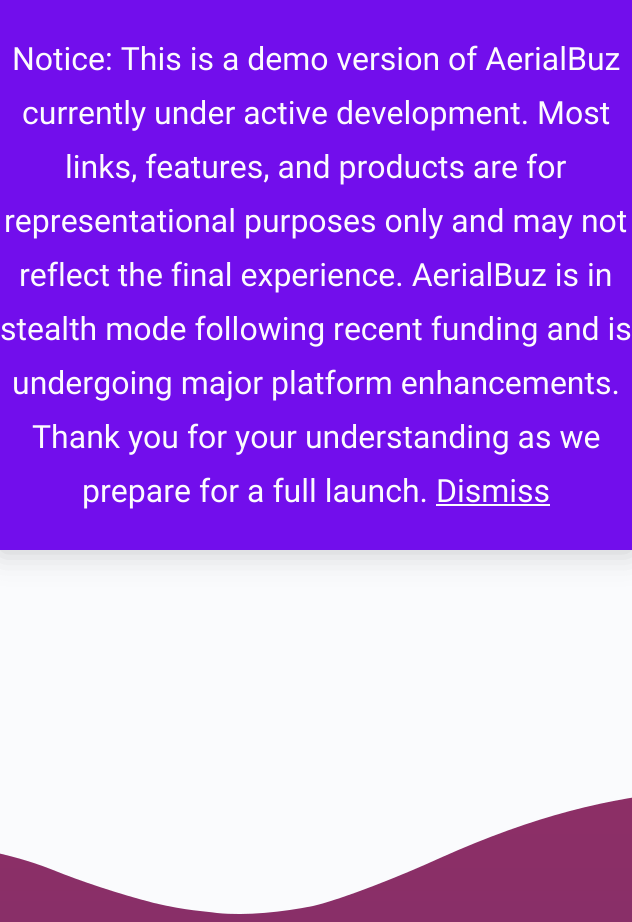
import math
import cairo

surface = cairo.ImageSurface(cairo.FORMAT_RGB24, 632, 922)
ctx = cairo.Context(surface)
options = cairo.FontOptions()
options.set_hint_metrics(cairo.HINT_METRICS_OFF)
options.set_hint_style(cairo.HINT_STYLE_NONE)
ctx.set_font_options(options)
ctx.set_miter_limit(4)


def round_rect(x, y, w, h, r):
    ctx.new_sub_path()
    for i, (u, v) in enumerate([(x + w - r, y + h - r), (x + r, y + h - r), (x + r, y + r), (x + w - r, y + r)]):
        ctx.arc(u, v, r, i * math.pi / 2, (i + 1) * math.pi / 2)
    ctx.close_path()


def shadow(x, y, w, h, r, blur, alpha):
    ctx.push_group_with_content(cairo.CONTENT_ALPHA)
    ctx.set_operator(cairo.OPERATOR_SOURCE)
    for i in range(15, -16, -2):
        e = blur * i / 6
        if min(w, h) + 2 * e > 0:
            ctx.set_source_rgba(0, 0, 0, alpha * math.erfc((i - 1) / 8.5) / 2)
            round_rect(x - e, y - e, w + 2 * e, h + 2 * e, max(0, min(r + e + blur * .6, min(w, h) / 2 + e)))
            ctx.fill()
    ctx.mask(ctx.pop_group())


ctx.set_source_rgb(0.98, 0.984, 0.992)
ctx.paint()
ctx.set_source_rgb(0, 0, 0)
shadow(0, 2, 632, 550, 0, 16, 0.2)
ctx.set_source_rgb(0.447, 0.055, 0.925)
ctx.rectangle(0, 0, 632, 550)
ctx.fill()
ctx.select_font_face("Roboto")
ctx.set_font_size(32)
ctx.set_source_rgb(0.988, 0.984, 0.996)
ctx.move_to(12, 70)
ctx.show_text("Notice: This is a demo version of AerialBuz")
ctx.move_to(22, 124)
ctx.show_text("currently under active development. Most")
ctx.move_to(65, 178)
ctx.show_text("links, features, and products are for")
ctx.move_to(4, 232)
ctx.show_text("representational purposes only and may not")
ctx.move_to(19, 286)
ctx.show_text("reflect the final experience. AerialBuz is in")
ctx.move_to(0, 340)
ctx.show_text("stealth mode following recent funding and is")
ctx.move_to(12, 394)
ctx.show_text("undergoing major platform enhancements.")
ctx.move_to(32, 448)
ctx.show_text("Thank you for your understanding as we")
ctx.move_to(82, 502)
ctx.show_text("prepare for a full launch. Dismiss")
ctx.rectangle(436, 504, 114, 2)
ctx.fill()
gradient = cairo.LinearGradient(316, 784, 316, 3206)
gradient.add_color_stop_rgba(0, 0.553, 0.184, 0.4, 1)
gradient.add_color_stop_rgba(1, 0.267, 0.188, 0.533, 1)
ctx.set_source(gradient)
ctx.rectangle(0, 797, 632, 125)
ctx.fill()
ctx.save()
ctx.rectangle(0, 782, 632, 134)
ctx.clip()
ctx.set_source_rgb(0.98, 0.984, 0.992)
ctx.new_path()
ctx.move_to(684, 791)
ctx.curve_to(609, 798, 536, 815, 440, 858)
ctx.curve_to(403, 875, 343, 899, 313, 906)
ctx.curve_to(283, 912, 246, 916, 217, 913)
ctx.curve_to(204, 911, 188, 911, 154, 903)
ctx.curve_to(119, 894, 80, 881, 53, 870)
ctx.curve_to(1, 849, -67, 840, -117, 840)
ctx.curve_to(-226, 837, -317, 881, -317, 881)
ctx.line_to(-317, 781)
ctx.line_to(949, 781)
ctx.line_to(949, 828)
ctx.curve_to(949, 828, 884, 802, 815, 793)
ctx.curve_to(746, 785, 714, 788, 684, 791)
ctx.close_path()
ctx.fill()
ctx.restore()
surface.write_to_png("page.png")
